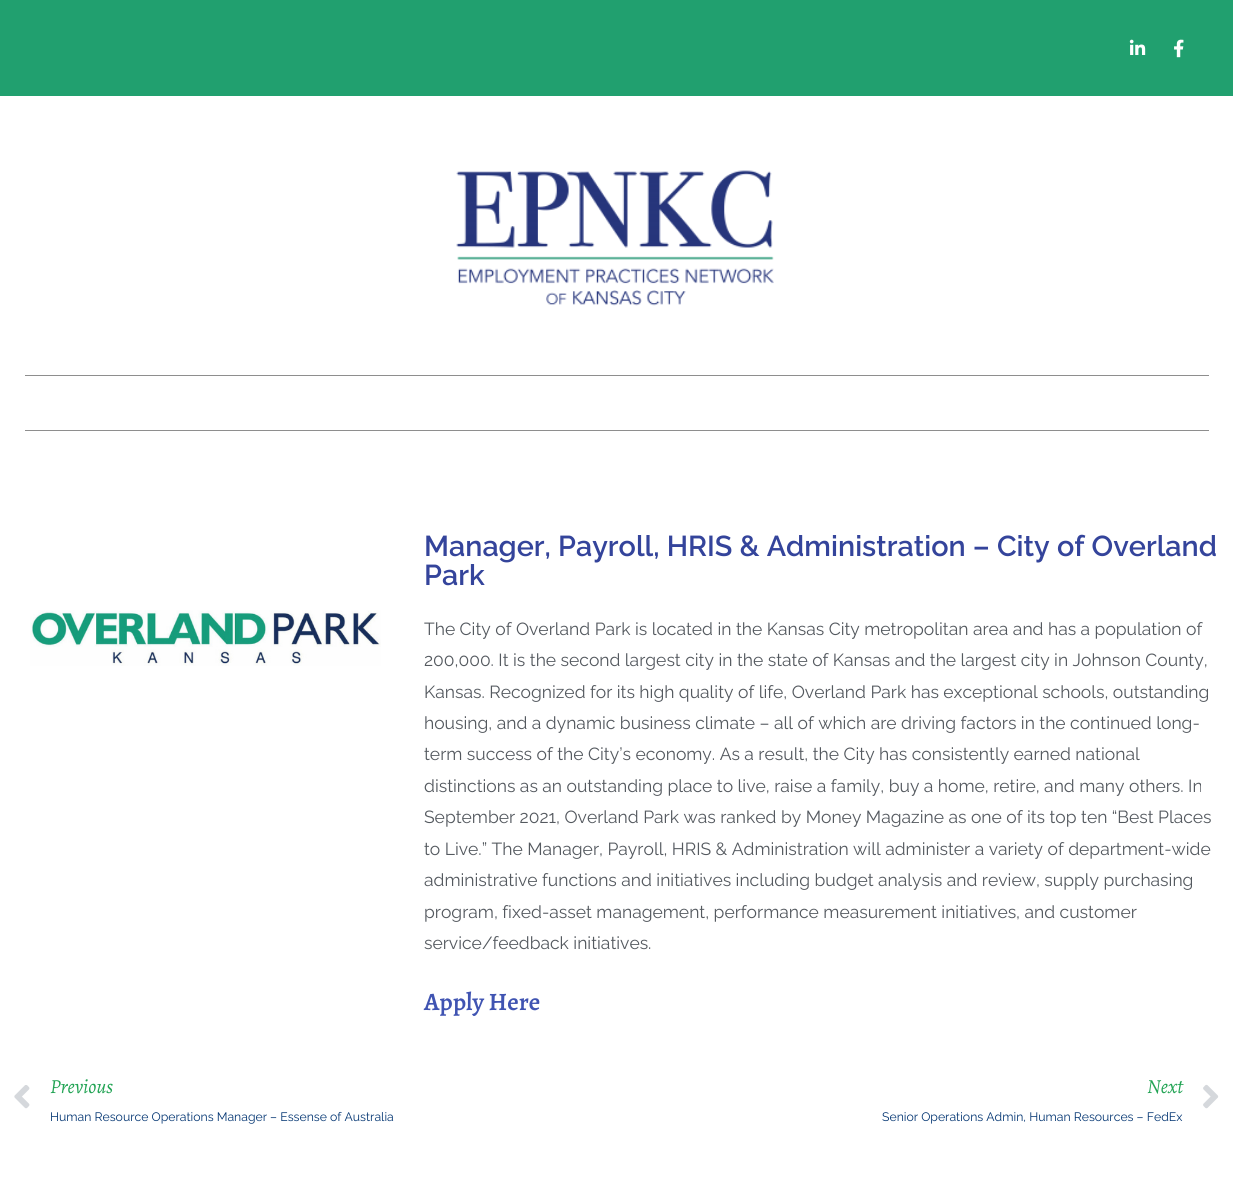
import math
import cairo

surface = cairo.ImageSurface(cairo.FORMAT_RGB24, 1233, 1187)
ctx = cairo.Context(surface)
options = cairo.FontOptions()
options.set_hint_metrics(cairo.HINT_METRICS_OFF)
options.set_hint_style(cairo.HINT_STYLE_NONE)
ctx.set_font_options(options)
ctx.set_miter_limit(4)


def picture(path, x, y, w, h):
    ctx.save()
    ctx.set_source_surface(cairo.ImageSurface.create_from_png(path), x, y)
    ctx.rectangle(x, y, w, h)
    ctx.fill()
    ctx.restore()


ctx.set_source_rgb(1, 1, 1)
ctx.paint()
ctx.set_source_rgb(0.129, 0.627, 0.435)
ctx.rectangle(0, 0, 1233, 96)
ctx.fill()
picture("img1.png", 1129, 39, 17, 16)
picture("img2.png", 1174, 39, 10, 19)
picture("img3.png", 456, 170, 318, 136)
ctx.set_source_rgb(0.557, 0.557, 0.557)
ctx.rectangle(25, 375, 1184, 1)
ctx.fill()
ctx.rectangle(25, 430, 1184, 1)
ctx.fill()
picture("img4.png", 30, 610, 351, 56)
ctx.select_font_face("Raleway SemiBold")
ctx.set_font_size(28.75)
ctx.set_source_rgb(0.204, 0.267, 0.608)
ctx.move_to(424, 556)
ctx.show_text("Manager, Payroll, HRIS & Administration – City of Overland")
ctx.move_to(424, 585)
ctx.show_text("Park")
ctx.select_font_face("Raleway")
ctx.set_font_size(17.5)
ctx.set_source_rgb(0.329, 0.349, 0.373)
ctx.move_to(424, 635)
ctx.show_text("The City of Overland Park is located in the Kansas City metropolitan area and has a population of")
ctx.move_to(424, 666)
ctx.show_text("200,000. It is the second largest city in the state of Kansas and the largest city in Johnson County,")
ctx.move_to(424, 698)
ctx.show_text("Kansas. Recognized for its high quality of life, Overland Park has exceptional schools, outstanding")
ctx.move_to(424, 729)
ctx.show_text("housing, and a dynamic business climate – all of which are driving factors in the continued long-")
ctx.move_to(424, 760)
ctx.show_text("term success of the City’s economy. As a result, the City has consistently earned national")
ctx.move_to(424, 792)
ctx.show_text("distinctions as an outstanding place to live, raise a family, buy a home, retire, and many others. In")
ctx.move_to(424, 823)
ctx.show_text("September 2021, Overland Park was ranked by Money Magazine as one of its top ten “Best Places")
ctx.move_to(424, 855)
ctx.show_text("to Live.” The Manager, Payroll, HRIS & Administration will administer a variety of department-wide")
ctx.move_to(424, 886)
ctx.show_text("administrative functions and initiatives including budget analysis and review, supply purchasing")
ctx.move_to(424, 918)
ctx.show_text("program, fixed-asset management, performance measurement initiatives, and customer")
ctx.move_to(424, 949)
ctx.show_text("service/feedback initiatives.")
ctx.select_font_face("Alegreya SemiBold")
ctx.set_font_size(25)
ctx.set_source_rgb(0.251, 0.329, 0.698)
ctx.move_to(424, 1010)
ctx.show_text("Apply Here")
picture("img5.png", 14, 1085, 16, 24)
ctx.select_font_face("Alegreya", cairo.FONT_SLANT_ITALIC)
ctx.set_font_size(20)
ctx.set_source_rgb(0.137, 0.643, 0.333)
ctx.move_to(50, 1093)
ctx.show_text("Previous")
ctx.select_font_face("Raleway")
ctx.set_font_size(12.25)
ctx.set_source_rgb(0.012, 0.208, 0.447)
ctx.move_to(50, 1121)
ctx.show_text("Human Resource Operations Manager – Essense of Australia")
ctx.select_font_face("Alegreya", cairo.FONT_SLANT_ITALIC)
ctx.set_font_size(20)
ctx.set_source_rgb(0.137, 0.643, 0.333)
ctx.move_to(1147, 1093)
ctx.show_text("Next")
ctx.select_font_face("Raleway")
ctx.set_font_size(12.25)
ctx.set_source_rgb(0.012, 0.208, 0.447)
ctx.move_to(882, 1121)
ctx.show_text("Senior Operations Admin, Human Resources – FedEx")
picture("img6.png", 1203, 1084, 16, 25)
surface.write_to_png("page.png")
